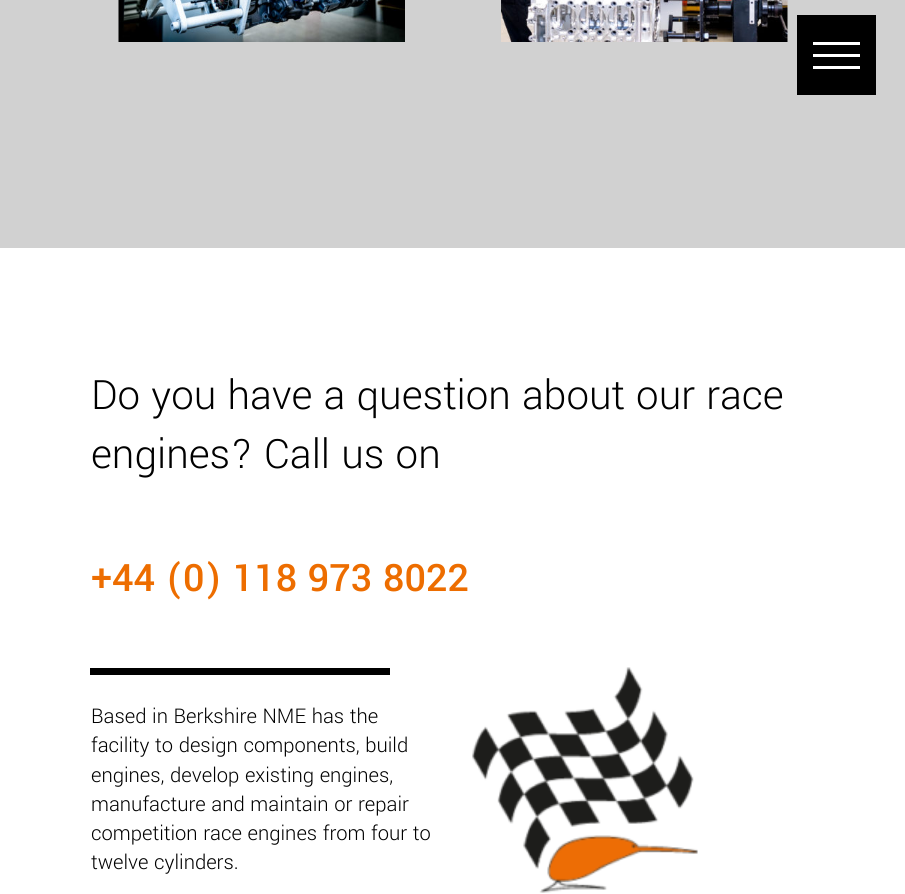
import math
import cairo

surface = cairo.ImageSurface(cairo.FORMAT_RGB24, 905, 894)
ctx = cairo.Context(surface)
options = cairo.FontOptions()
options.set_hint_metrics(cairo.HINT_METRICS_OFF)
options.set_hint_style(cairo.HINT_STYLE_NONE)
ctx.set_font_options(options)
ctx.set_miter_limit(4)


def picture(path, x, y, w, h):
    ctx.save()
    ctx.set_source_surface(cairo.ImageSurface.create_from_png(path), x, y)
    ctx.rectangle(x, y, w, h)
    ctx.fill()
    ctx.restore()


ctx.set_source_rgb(0.82, 0.82, 0.82)
ctx.paint()
ctx.set_source_rgb(0, 0, 0)
ctx.rectangle(797, 15, 79, 80)
ctx.fill()
ctx.set_source_rgb(1, 1, 1)
ctx.rectangle(813, 54, 47, 3)
ctx.fill()
ctx.rectangle(813, 42, 47, 3)
ctx.fill()
ctx.rectangle(813, 66, 47, 3)
ctx.fill()
picture("img1.png", 118, 0, 287, 42)
picture("img2.png", 501, 0, 287, 42)
ctx.rectangle(0, 248, 905, 646)
ctx.fill()
ctx.select_font_face("Yantramanav Light")
ctx.set_font_size(45)
ctx.set_source_rgb(0, 0, 0)
ctx.move_to(91, 409)
ctx.show_text("Do you have a question about our race")
ctx.move_to(91, 468)
ctx.show_text("engines? Call us on")
ctx.select_font_face("Yantramanav Medium")
ctx.set_font_size(42)
ctx.set_source_rgb(0.929, 0.427, 0)
ctx.move_to(91, 591)
ctx.show_text("+44 (0) 118 973 8022")
ctx.set_source_rgb(0, 0, 0)
ctx.rectangle(90, 668, 300, 7)
ctx.fill()
ctx.select_font_face("Yantramanav Light")
ctx.set_font_size(22.5)
ctx.move_to(91, 723)
ctx.show_text("Based in Berkshire NME has the")
ctx.move_to(91, 752)
ctx.show_text("facility to design components, build")
ctx.move_to(91, 782)
ctx.show_text("engines, develop existing engines,")
ctx.move_to(91, 811)
ctx.show_text("manufacture and maintain or repair")
ctx.move_to(91, 840)
ctx.show_text("competition race engines from four to")
ctx.move_to(91, 869)
ctx.show_text("twelve cylinders.")
picture("img3.png", 472, 667, 226, 226)
surface.write_to_png("page.png")
